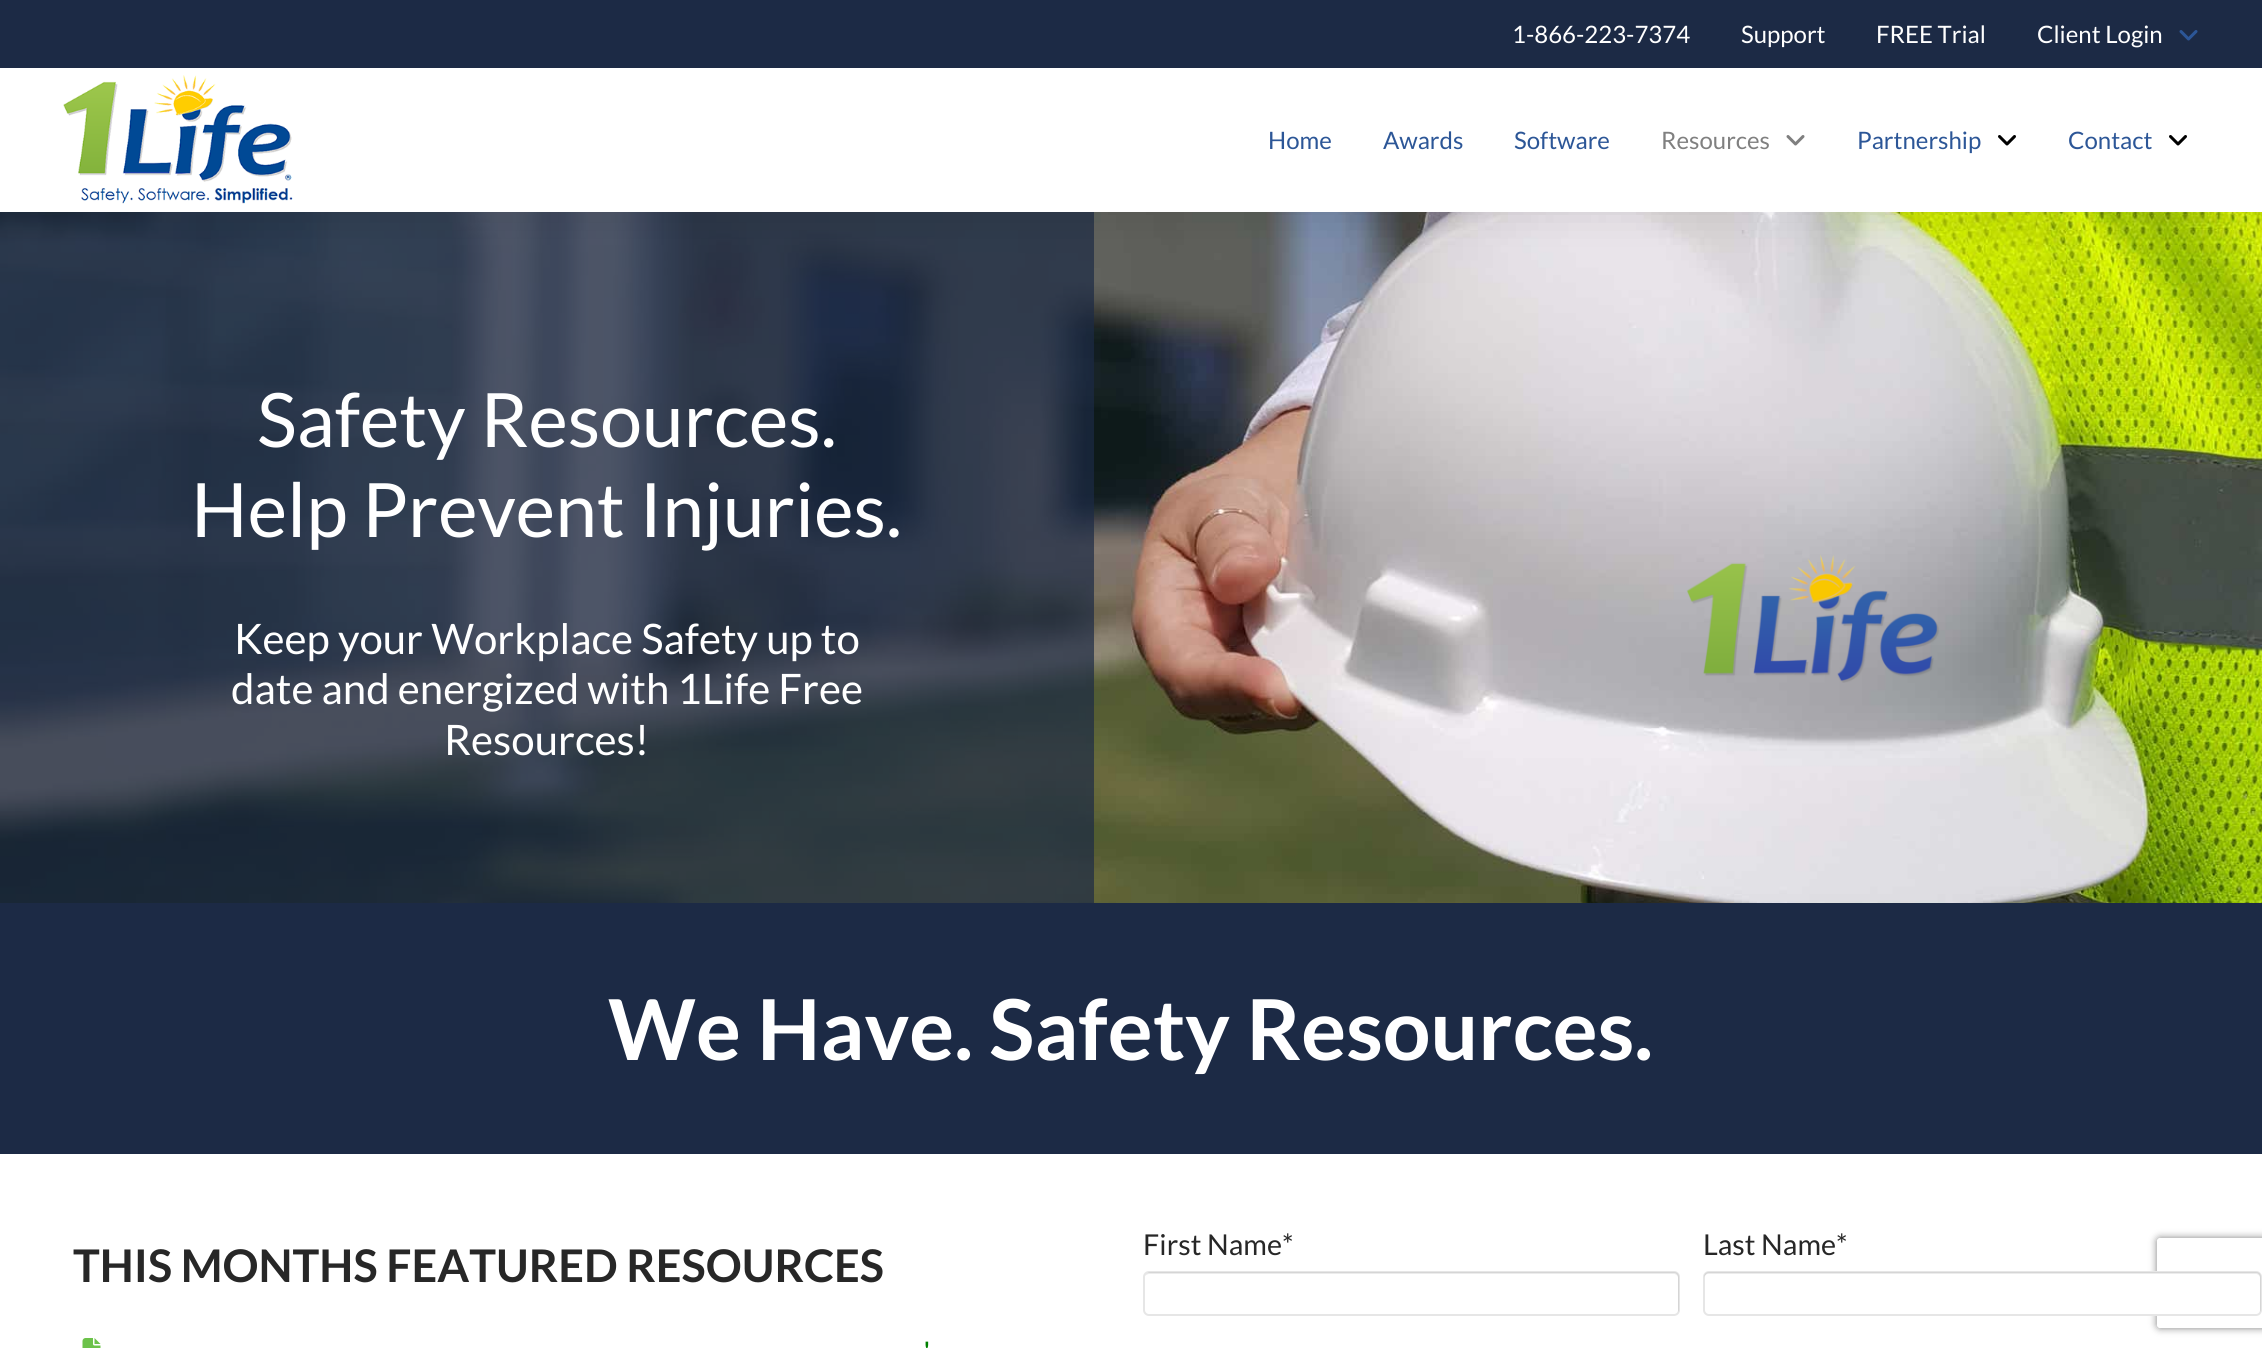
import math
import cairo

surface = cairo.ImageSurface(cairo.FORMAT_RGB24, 2262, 1348)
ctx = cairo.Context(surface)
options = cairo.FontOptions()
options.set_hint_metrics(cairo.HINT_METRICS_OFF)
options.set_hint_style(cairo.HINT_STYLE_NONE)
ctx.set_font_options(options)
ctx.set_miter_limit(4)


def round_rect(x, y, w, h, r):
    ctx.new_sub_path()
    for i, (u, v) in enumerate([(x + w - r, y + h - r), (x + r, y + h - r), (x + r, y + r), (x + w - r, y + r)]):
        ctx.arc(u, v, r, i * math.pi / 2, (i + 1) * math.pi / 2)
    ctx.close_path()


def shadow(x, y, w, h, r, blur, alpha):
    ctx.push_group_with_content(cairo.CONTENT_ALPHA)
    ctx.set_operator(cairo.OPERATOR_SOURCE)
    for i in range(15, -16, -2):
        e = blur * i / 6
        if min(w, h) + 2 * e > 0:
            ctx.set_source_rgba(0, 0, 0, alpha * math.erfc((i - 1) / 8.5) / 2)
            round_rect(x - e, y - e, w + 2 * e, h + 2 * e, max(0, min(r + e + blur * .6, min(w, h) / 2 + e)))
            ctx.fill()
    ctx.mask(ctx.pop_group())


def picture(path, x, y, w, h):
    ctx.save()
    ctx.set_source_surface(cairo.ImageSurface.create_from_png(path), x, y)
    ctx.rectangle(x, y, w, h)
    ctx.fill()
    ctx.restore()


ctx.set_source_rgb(1, 1, 1)
ctx.paint()
picture("img5.png", 0, 212, 2262, 691)
ctx.set_source_rgba(0.11, 0.165, 0.271, 0.7)
ctx.rectangle(0, 212, 1094, 691)
ctx.fill()
ctx.set_source_rgb(0.051, 0.051, 0.051)
shadow(0, 59, 2262, 144, 0, 24, 0.15)
ctx.set_source_rgb(0.11, 0.165, 0.271)
ctx.rectangle(0, 0, 2262, 68)
ctx.fill()
ctx.select_font_face("Lato")
ctx.set_font_size(24)
ctx.set_source_rgb(1, 1, 1)
ctx.move_to(1512, 43)
ctx.show_text("1-866-223-7374")
ctx.move_to(1741, 43)
ctx.show_text("Support")
ctx.move_to(1876, 43)
ctx.show_text("FREE Trial")
ctx.move_to(2037, 43)
ctx.show_text("Client Login")
picture("img1.png", 2179, 30, 19, 11)
ctx.rectangle(0, 68, 2262, 144)
ctx.fill()
picture("img2.png", 63, 75, 230, 129)
ctx.set_source_rgb(0.173, 0.337, 0.592)
ctx.move_to(1268, 149)
ctx.show_text("Home")
ctx.move_to(1383, 149)
ctx.show_text("Awards")
ctx.move_to(1514, 149)
ctx.show_text("Software")
ctx.set_source_rgb(0.502, 0.502, 0.502)
ctx.move_to(1661, 149)
ctx.show_text("Resources")
picture("img3.png", 1786, 135, 19, 11)
ctx.set_source_rgb(0.173, 0.337, 0.592)
ctx.move_to(1857, 149)
ctx.show_text("Partnership")
picture("img4.png", 1998, 135, 18, 11)
ctx.move_to(2068, 149)
ctx.show_text("Contact")
picture("img4.png", 2169, 135, 18, 11)
ctx.set_font_size(75)
ctx.set_source_rgb(1, 1, 1)
ctx.move_to(257, 447)
ctx.show_text("Safety Resources.")
ctx.move_to(191, 537)
ctx.show_text("Help Prevent Injuries.")
ctx.set_font_size(42)
ctx.move_to(234, 654)
ctx.show_text("Keep your Workplace Safety up to")
ctx.move_to(231, 704)
ctx.show_text("date and energized with 1Life Free")
ctx.move_to(444, 755)
ctx.show_text("Resources!")
ctx.set_source_rgb(0.11, 0.165, 0.271)
ctx.rectangle(0, 903, 2262, 251)
ctx.fill()
ctx.select_font_face("Lato", cairo.FONT_SLANT_NORMAL, cairo.FONT_WEIGHT_BOLD)
ctx.set_font_size(84)
ctx.set_source_rgb(1, 1, 1)
ctx.move_to(608, 1060)
ctx.show_text("We Have. Safety Resources.")
ctx.select_font_face("Lato")
ctx.set_font_size(28.75)
ctx.set_source_rgb(0.153, 0.153, 0.153)
ctx.move_to(1143, 1255)
ctx.show_text("First Name*")
ctx.set_source_rgb(0.925, 0.925, 0.925)
ctx.new_path()
ctx.move_to(1149, 1274)
ctx.line_to(1674, 1274)
ctx.curve_to(1676, 1274, 1678, 1276, 1678, 1278)
ctx.line_to(1678, 1312)
ctx.curve_to(1679, 1311, 1679, 1310, 1679, 1309)
ctx.line_to(1679, 1277)
ctx.curve_to(1679, 1274, 1677, 1272, 1674, 1272)
ctx.line_to(1150, 1272)
ctx.curve_to(1148, 1272, 1146, 1274, 1145, 1276)
ctx.curve_to(1146, 1275, 1148, 1274, 1149, 1274)
ctx.close_path()
ctx.fill()
round_rect(1144, 1272, 535, 43, 5)
ctx.set_source_rgba(0, 0, 0, 0.1)
ctx.stroke()
ctx.set_source_rgb(0.153, 0.153, 0.153)
ctx.move_to(1703, 1255)
ctx.show_text("Last Name*")
ctx.save()
ctx.set_fill_rule(cairo.FILL_RULE_EVEN_ODD)
ctx.new_path()
ctx.move_to(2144, 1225)
ctx.line_to(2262, 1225)
ctx.line_to(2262, 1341)
ctx.line_to(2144, 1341)
ctx.close_path()
ctx.move_to(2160, 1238)
ctx.line_to(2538, 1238)
ctx.curve_to(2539.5, 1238, 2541, 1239.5, 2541, 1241)
ctx.line_to(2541, 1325)
ctx.curve_to(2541, 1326.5, 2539.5, 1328, 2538, 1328)
ctx.line_to(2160, 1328)
ctx.curve_to(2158.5, 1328, 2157, 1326.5, 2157, 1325)
ctx.line_to(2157, 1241)
ctx.curve_to(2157, 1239.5, 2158.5, 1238, 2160, 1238)
ctx.close_path()
ctx.clip()
ctx.set_source_rgb(0.502, 0.502, 0.502)
shadow(2157, 1238, 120, 90, 3, 4, 1)
ctx.restore()
ctx.set_source_rgb(1, 1, 1)
round_rect(1703, 1271, 559, 45, 6)
ctx.fill()
ctx.set_source_rgb(0.925, 0.925, 0.925)
ctx.new_path()
ctx.move_to(1708, 1274)
ctx.line_to(2256, 1274)
ctx.curve_to(2258, 1274, 2260, 1276, 2260, 1278)
ctx.line_to(2260, 1312)
ctx.curve_to(2261, 1311, 2261, 1310, 2261, 1309)
ctx.line_to(2261, 1277)
ctx.curve_to(2261, 1274, 2259, 1272, 2256, 1272)
ctx.line_to(1709, 1272)
ctx.curve_to(1706, 1272, 1704, 1274, 1704, 1277)
ctx.line_to(1704, 1278)
ctx.curve_to(1704, 1276, 1706, 1274, 1708, 1274)
ctx.close_path()
ctx.fill()
round_rect(1704, 1272, 557, 43, 5)
ctx.set_source_rgba(0, 0, 0, 0.1)
ctx.stroke()
ctx.select_font_face("Lato", cairo.FONT_SLANT_NORMAL, cairo.FONT_WEIGHT_BOLD)
ctx.set_font_size(45)
ctx.set_source_rgb(0.153, 0.153, 0.153)
ctx.move_to(73, 1282)
ctx.show_text("THIS MONTHS FEATURED RESOURCES")
picture("img6.png", 82, 1338, 19, 10)
ctx.set_font_size(24)
ctx.set_source_rgb(0, 0.502, 0)
ctx.move_to(924, 1359)
ctx.show_text("'")
surface.write_to_png("page.png")
